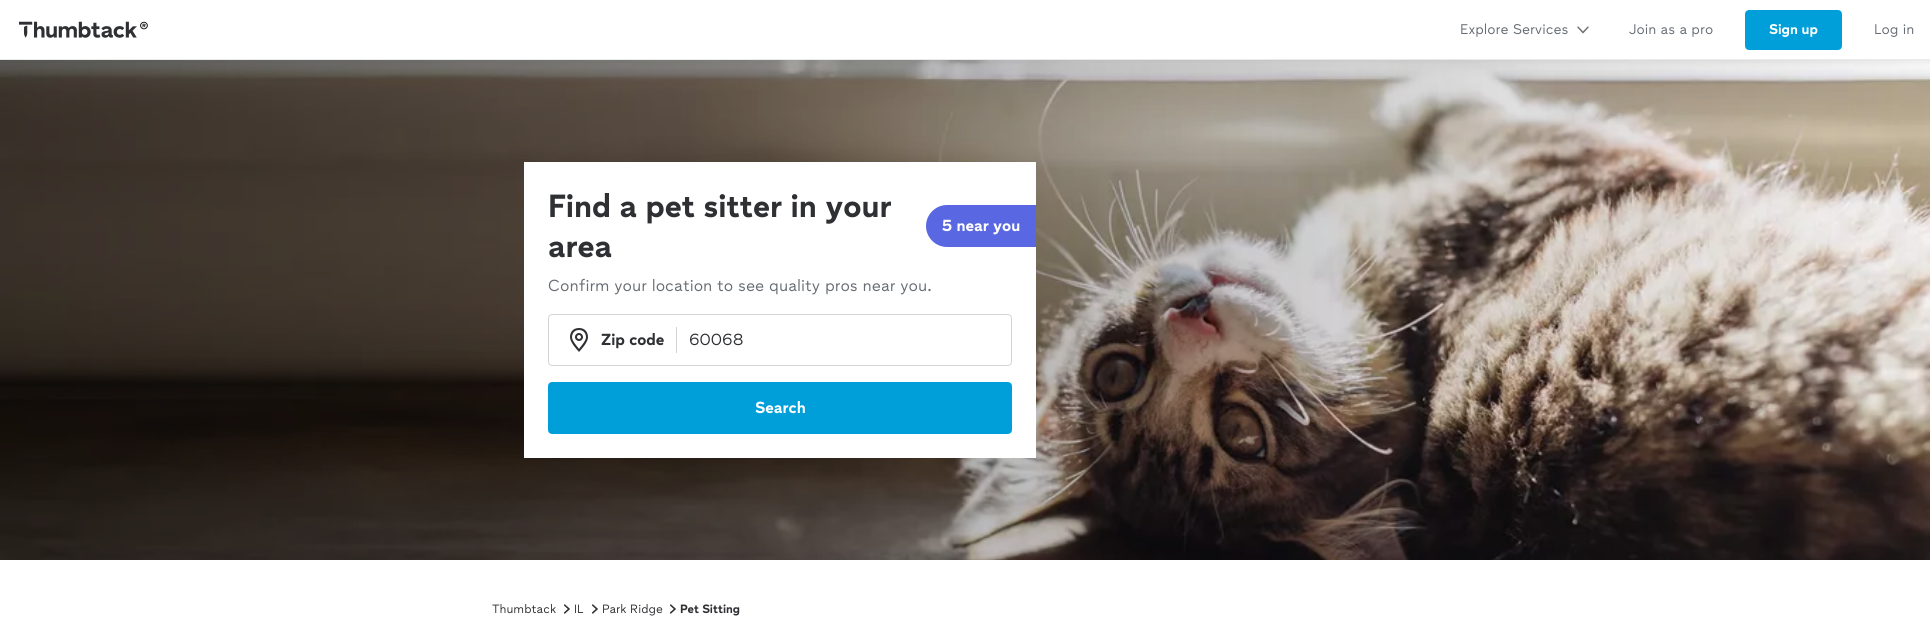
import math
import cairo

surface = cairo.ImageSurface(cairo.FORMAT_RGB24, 1930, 634)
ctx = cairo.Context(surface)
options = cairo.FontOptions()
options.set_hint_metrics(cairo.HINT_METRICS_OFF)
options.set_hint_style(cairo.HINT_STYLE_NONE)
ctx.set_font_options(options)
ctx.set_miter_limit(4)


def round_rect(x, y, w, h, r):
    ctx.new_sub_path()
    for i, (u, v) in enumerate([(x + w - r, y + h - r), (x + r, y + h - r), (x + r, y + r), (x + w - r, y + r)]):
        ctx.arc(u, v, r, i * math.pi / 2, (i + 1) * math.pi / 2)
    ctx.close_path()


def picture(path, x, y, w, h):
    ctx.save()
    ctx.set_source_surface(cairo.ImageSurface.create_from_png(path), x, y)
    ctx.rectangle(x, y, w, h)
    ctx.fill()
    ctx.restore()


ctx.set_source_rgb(1, 1, 1)
ctx.paint()
ctx.set_source_rgb(0.914, 0.925, 0.929)
ctx.rectangle(0, 59, 1930, 1)
ctx.fill()
picture("img1.png", 19, 21, 129, 17)
ctx.select_font_face("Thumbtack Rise")
ctx.set_font_size(14)
ctx.set_source_rgb(0.404, 0.427, 0.451)
ctx.move_to(1460, 34)
ctx.show_text("Explore Services")
picture("img2.png", 1577, 26, 12, 8)
ctx.move_to(1629, 34)
ctx.show_text("Join as a pro")
ctx.set_source_rgb(0, 0.624, 0.851)
round_rect(1746, 11, 95, 38, 3)
ctx.fill_preserve()
ctx.stroke()
ctx.select_font_face("Thumbtack Rise", cairo.FONT_SLANT_NORMAL, cairo.FONT_WEIGHT_BOLD)
ctx.set_source_rgb(1, 1, 1)
ctx.move_to(1769, 34)
ctx.show_text("Sign up")
ctx.select_font_face("Thumbtack Rise")
ctx.set_source_rgb(0.404, 0.427, 0.451)
ctx.move_to(1874, 34)
ctx.show_text("Log in")
picture("img3.png", 0, 60, 1930, 500)
ctx.set_source_rgb(1, 1, 1)
ctx.rectangle(524, 162, 512, 296)
ctx.fill()
ctx.select_font_face("Thumbtack Rise", cairo.FONT_SLANT_NORMAL, cairo.FONT_WEIGHT_BOLD)
ctx.set_font_size(32)
ctx.set_source_rgb(0.184, 0.188, 0.2)
ctx.move_to(548, 217)
ctx.show_text("Find a pet sitter in your")
ctx.move_to(548, 257)
ctx.show_text("area")
ctx.set_source_rgb(0.349, 0.408, 0.886)
ctx.new_path()
ctx.move_to(947, 205)
ctx.line_to(1036, 205)
ctx.line_to(1036, 247)
ctx.line_to(947, 247)
ctx.curve_to(935.5, 247, 926, 237.5, 926, 226)
ctx.curve_to(926, 214.5, 935.5, 205, 947, 205)
ctx.close_path()
ctx.fill()
ctx.set_font_size(16)
ctx.set_source_rgb(1, 1, 1)
ctx.move_to(942, 231)
ctx.show_text("5 near you")
ctx.select_font_face("Thumbtack Rise")
ctx.set_source_rgb(0.404, 0.427, 0.451)
ctx.move_to(548, 291)
ctx.show_text("Confirm your location to see quality pros near you.")
round_rect(548.5, 314.5, 463, 51, 3.5)
ctx.set_source_rgb(0.827, 0.831, 0.835)
ctx.set_line_width(1)
ctx.stroke()
picture("img4.png", 570, 328, 18, 24)
ctx.rectangle(676, 327, 1, 26)
ctx.fill()
ctx.select_font_face("Thumbtack Rise", cairo.FONT_SLANT_NORMAL, cairo.FONT_WEIGHT_BOLD)
ctx.set_source_rgb(0.184, 0.188, 0.2)
ctx.move_to(601, 345)
ctx.show_text("Zip code")
ctx.select_font_face("Thumbtack Rise")
ctx.move_to(689, 345)
ctx.show_text("60068")
ctx.set_source_rgb(0, 0.624, 0.851)
round_rect(549, 383, 462, 50, 3)
ctx.fill_preserve()
ctx.set_line_width(2)
ctx.stroke()
ctx.select_font_face("Thumbtack Rise", cairo.FONT_SLANT_NORMAL, cairo.FONT_WEIGHT_BOLD)
ctx.set_source_rgb(1, 1, 1)
ctx.move_to(755, 413)
ctx.show_text("Search")
ctx.select_font_face("Thumbtack Rise")
ctx.set_font_size(12)
ctx.set_source_rgb(0.184, 0.188, 0.2)
ctx.move_to(492, 613)
ctx.show_text("Thumbtack")
picture("img5.png", 563, 604, 7, 10)
ctx.move_to(574, 613)
ctx.show_text("IL")
picture("img5.png", 591, 604, 7, 10)
ctx.move_to(602, 613)
ctx.show_text("Park Ridge")
picture("img5.png", 669, 604, 7, 10)
ctx.select_font_face("Thumbtack Rise", cairo.FONT_SLANT_NORMAL, cairo.FONT_WEIGHT_BOLD)
ctx.move_to(680, 613)
ctx.show_text("Pet Sitting")
surface.write_to_png("page.png")
